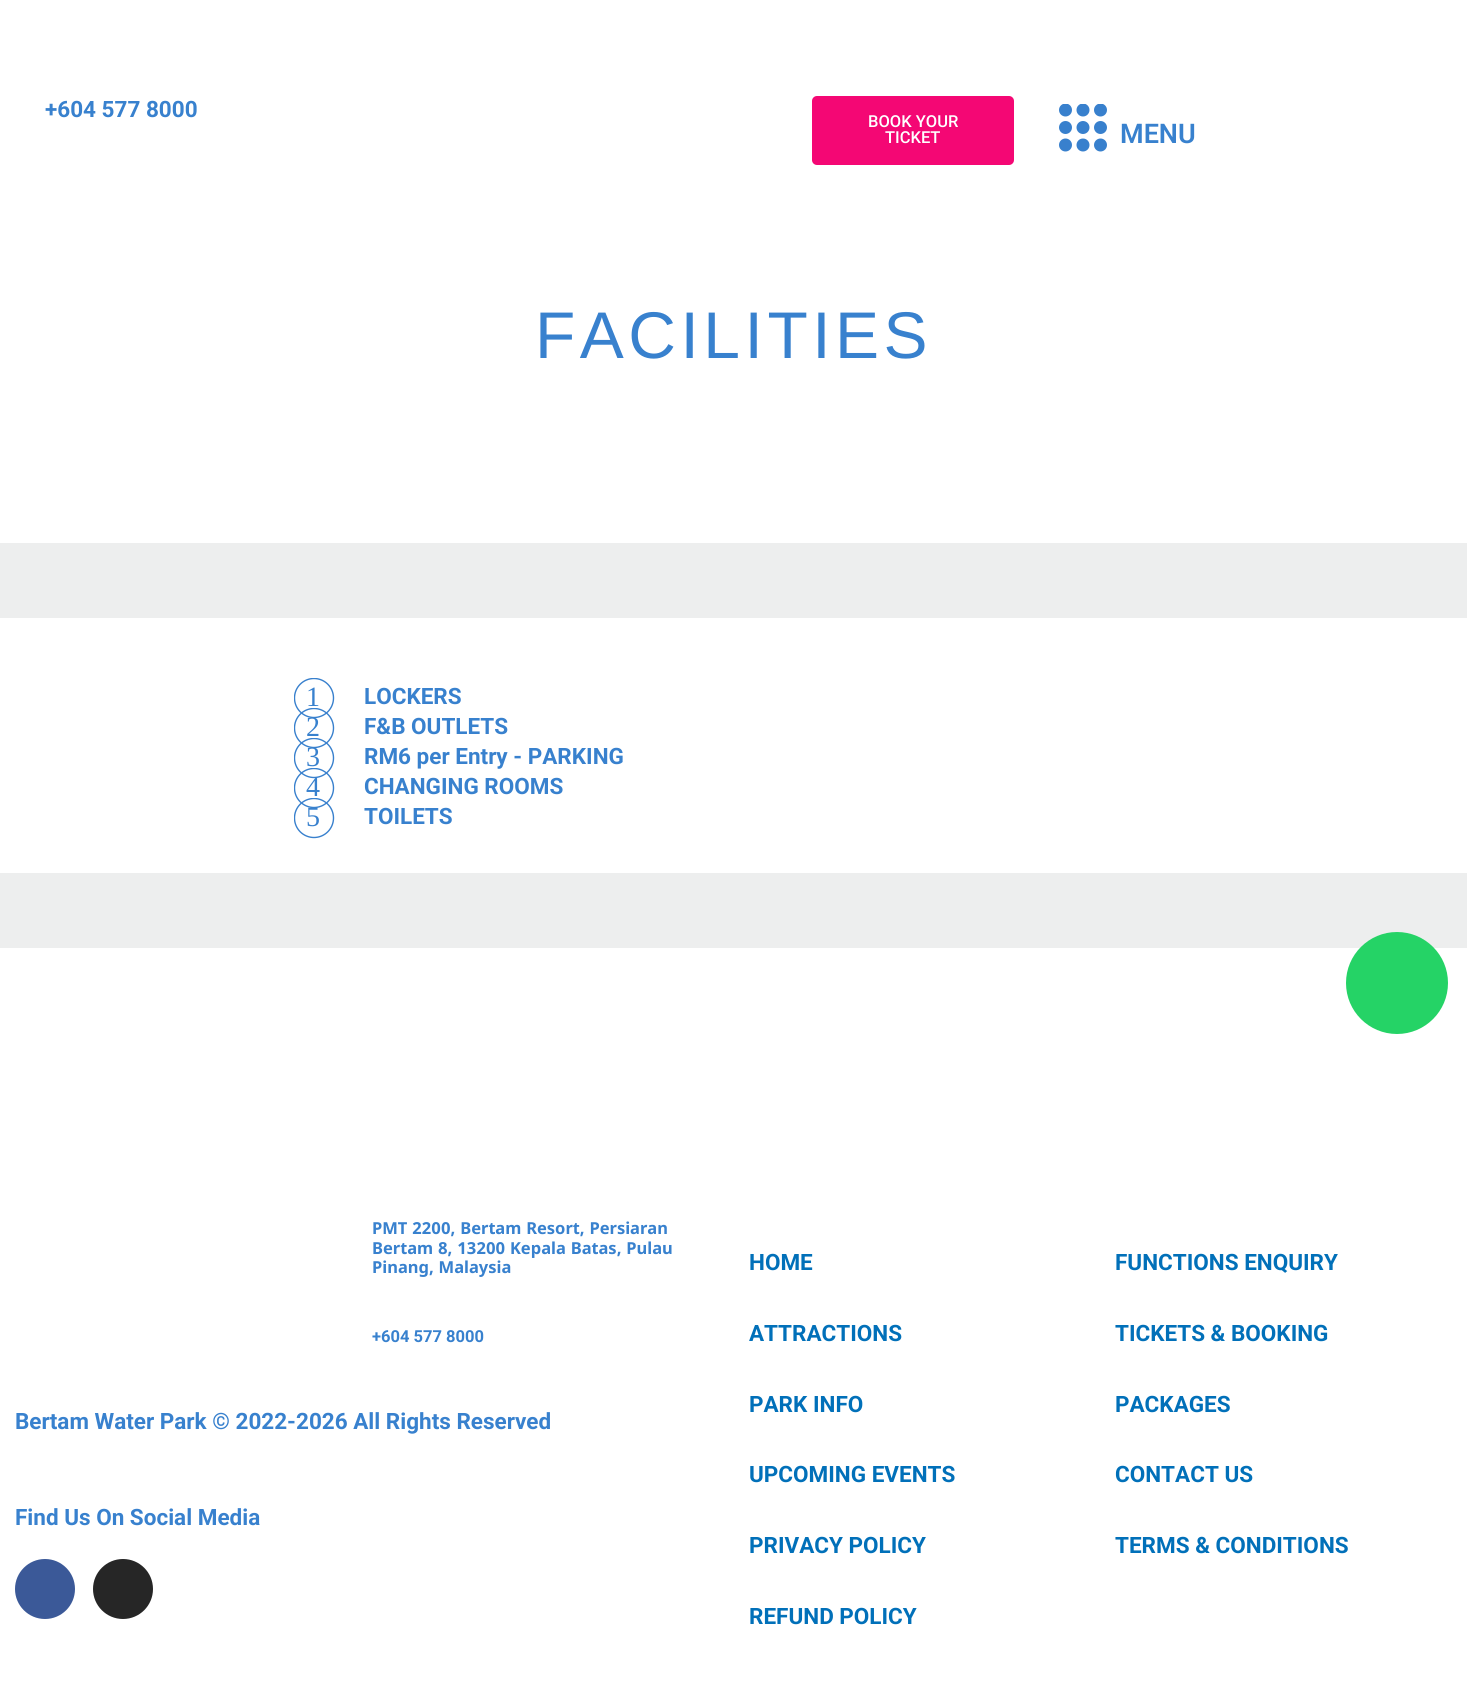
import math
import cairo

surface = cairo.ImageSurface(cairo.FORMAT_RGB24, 1467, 1702)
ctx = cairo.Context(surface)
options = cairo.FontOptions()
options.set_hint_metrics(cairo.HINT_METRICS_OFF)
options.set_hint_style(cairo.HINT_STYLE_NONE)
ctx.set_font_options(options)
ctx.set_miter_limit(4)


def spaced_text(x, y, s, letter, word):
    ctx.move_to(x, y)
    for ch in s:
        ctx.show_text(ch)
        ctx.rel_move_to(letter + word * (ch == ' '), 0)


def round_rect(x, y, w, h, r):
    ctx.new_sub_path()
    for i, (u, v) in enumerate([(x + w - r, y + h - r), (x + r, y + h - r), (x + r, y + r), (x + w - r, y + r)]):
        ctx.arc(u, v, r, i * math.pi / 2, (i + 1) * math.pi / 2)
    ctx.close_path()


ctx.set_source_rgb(1, 1, 1)
ctx.paint()
ctx.select_font_face("Roboto", cairo.FONT_SLANT_NORMAL, cairo.FONT_WEIGHT_BOLD)
ctx.set_font_size(22.5)
ctx.set_source_rgb(0.22, 0.506, 0.808)
ctx.move_to(45, 117)
ctx.show_text("+604 577 8000")
ctx.set_source_rgb(0.957, 0.031, 0.455)
round_rect(812, 96, 202, 69, 5)
ctx.fill()
ctx.select_font_face("Roboto Medium")
ctx.set_font_size(16.5)
ctx.set_source_rgb(1, 1, 1)
ctx.move_to(868, 127)
ctx.show_text("BOOK YOUR")
ctx.move_to(885, 143)
ctx.show_text("TICKET")
ctx.save()
ctx.rectangle(1059, 104, 48, 48)
ctx.clip()
ctx.set_source_rgb(0.22, 0.502, 0.804)
ctx.arc(1065.5, 110, 6.5, 0, 2 * math.pi)
ctx.fill()
ctx.arc(1083, 110, 6.5, 0, 2 * math.pi)
ctx.fill()
ctx.arc(1100.5, 110, 6.5, 0, 2 * math.pi)
ctx.fill()
ctx.restore()
ctx.set_source_rgb(0.22, 0.502, 0.804)
ctx.arc(1065.5, 127.5, 6.5, 0, 2 * math.pi)
ctx.fill()
ctx.arc(1083, 127.5, 6.5, 0, 2 * math.pi)
ctx.fill()
ctx.arc(1100.5, 127.5, 6.5, 0, 2 * math.pi)
ctx.fill()
ctx.arc(1065.5, 145, 6.5, 0, 2 * math.pi)
ctx.fill()
ctx.arc(1083, 145, 6.5, 0, 2 * math.pi)
ctx.fill()
ctx.arc(1100.5, 145, 6.5, 0, 2 * math.pi)
ctx.fill()
ctx.select_font_face("Roboto SemiBold")
ctx.set_font_size(27)
ctx.set_source_rgb(0.22, 0.506, 0.808)
ctx.move_to(1120, 143)
ctx.show_text("MENU")
ctx.select_font_face("Liberation Sans")
ctx.set_font_size(66)
spaced_text(535, 358, "FACILITIES", 4.5, 0)
ctx.set_source_rgb(0.929, 0.933, 0.933)
ctx.rectangle(0, 543, 1467, 405)
ctx.fill()
ctx.set_source_rgb(1, 1, 1)
ctx.rectangle(0, 618, 1467, 255)
ctx.fill()
ctx.select_font_face("Liberation Serif")
ctx.set_font_size(28)
ctx.set_source_rgb(0.22, 0.506, 0.808)
ctx.move_to(306, 706)
ctx.show_text("1")
ctx.save()
ctx.rectangle(294, 678, 41, 41)
ctx.clip()
ctx.arc(314, 698, 19.5, 0, 2 * math.pi)
ctx.set_source_rgb(0.22, 0.502, 0.804)
ctx.set_line_width(1.4)
ctx.stroke()
ctx.restore()
ctx.select_font_face("Roboto", cairo.FONT_SLANT_NORMAL, cairo.FONT_WEIGHT_BOLD)
ctx.set_font_size(22.5)
ctx.move_to(364, 704)
ctx.show_text("LOCKERS")
ctx.select_font_face("Liberation Serif")
ctx.set_font_size(28)
ctx.move_to(306, 736)
ctx.show_text("2")
ctx.save()
ctx.rectangle(294, 708, 41, 41)
ctx.clip()
ctx.arc(314, 728, 19.5, 0, 2 * math.pi)
ctx.set_source_rgb(0.22, 0.502, 0.804)
ctx.set_line_width(1.4)
ctx.stroke()
ctx.restore()
ctx.select_font_face("Roboto", cairo.FONT_SLANT_NORMAL, cairo.FONT_WEIGHT_BOLD)
ctx.set_font_size(22.5)
ctx.move_to(364, 734)
ctx.show_text("F&B OUTLETS")
ctx.select_font_face("Liberation Serif")
ctx.set_font_size(28)
ctx.move_to(306, 766)
ctx.show_text("3")
ctx.save()
ctx.rectangle(294, 738, 41, 41)
ctx.clip()
ctx.arc(314, 758, 19.5, 0, 2 * math.pi)
ctx.set_source_rgb(0.22, 0.502, 0.804)
ctx.set_line_width(1.4)
ctx.stroke()
ctx.restore()
ctx.select_font_face("Roboto", cairo.FONT_SLANT_NORMAL, cairo.FONT_WEIGHT_BOLD)
ctx.set_font_size(22.5)
ctx.move_to(364, 764)
ctx.show_text("RM6 per Entry - PARKING")
ctx.select_font_face("Liberation Serif")
ctx.set_font_size(28)
ctx.move_to(306, 796)
ctx.show_text("4")
ctx.save()
ctx.rectangle(294, 768, 41, 41)
ctx.clip()
ctx.arc(314, 788, 19.5, 0, 2 * math.pi)
ctx.set_source_rgb(0.22, 0.502, 0.804)
ctx.set_line_width(1.4)
ctx.stroke()
ctx.restore()
ctx.select_font_face("Roboto", cairo.FONT_SLANT_NORMAL, cairo.FONT_WEIGHT_BOLD)
ctx.set_font_size(22.5)
ctx.move_to(364, 794)
ctx.show_text("CHANGING ROOMS")
ctx.select_font_face("Liberation Serif")
ctx.set_font_size(28)
ctx.move_to(306, 826)
ctx.show_text("5")
ctx.save()
ctx.rectangle(294, 798, 41, 41)
ctx.clip()
ctx.arc(314, 818, 19.5, 0, 2 * math.pi)
ctx.set_source_rgb(0.22, 0.502, 0.804)
ctx.set_line_width(1.4)
ctx.stroke()
ctx.restore()
ctx.select_font_face("Roboto", cairo.FONT_SLANT_NORMAL, cairo.FONT_WEIGHT_BOLD)
ctx.set_font_size(22.5)
ctx.move_to(364, 824)
ctx.show_text("TOILETS")
ctx.set_source_rgb(0.145, 0.827, 0.4)
ctx.new_path()
ctx.arc(1397, 983, 51, 0, 2 * math.pi)
ctx.fill()
ctx.select_font_face("Noto Sans Canadian Aboriginal", cairo.FONT_SLANT_NORMAL, cairo.FONT_WEIGHT_BOLD)
ctx.set_font_size(16.5)
ctx.set_source_rgb(0.22, 0.506, 0.808)
ctx.move_to(372, 1234)
ctx.show_text("PMT 2200, Bertam Resort, Persiaran")
ctx.move_to(372, 1254)
ctx.show_text("Bertam 8, 13200 Kepala Batas, Pulau")
ctx.move_to(372, 1273)
ctx.show_text("Pinang, Malaysia")
ctx.select_font_face("Roboto", cairo.FONT_SLANT_NORMAL, cairo.FONT_WEIGHT_BOLD)
ctx.move_to(372, 1342)
ctx.show_text("+604 577 8000")
ctx.set_font_size(22.5)
ctx.move_to(15, 1429)
ctx.show_text("Bertam Water Park © 2022-2026 All Rights Reserved")
ctx.move_to(15, 1525)
ctx.show_text("Find Us On Social Media")
ctx.set_source_rgb(0.231, 0.349, 0.596)
ctx.new_path()
ctx.arc(45, 1589, 30, 0, 2 * math.pi)
ctx.fill()
ctx.set_source_rgb(0.149, 0.149, 0.149)
ctx.arc(123, 1589, 30, 0, 2 * math.pi)
ctx.fill()
ctx.set_source_rgb(0.004, 0.439, 0.725)
ctx.move_to(749, 1270)
ctx.show_text("HOME")
ctx.move_to(749, 1341)
ctx.show_text("ATTRACTIONS")
ctx.move_to(749, 1412)
ctx.show_text("PARK INFO")
ctx.move_to(749, 1482)
ctx.show_text("UPCOMING EVENTS")
ctx.move_to(749, 1553)
ctx.show_text("PRIVACY POLICY")
ctx.move_to(749, 1624)
ctx.show_text("REFUND POLICY")
ctx.move_to(1115, 1270)
ctx.show_text("FUNCTIONS ENQUIRY")
ctx.move_to(1115, 1341)
ctx.show_text("TICKETS & BOOKING")
ctx.move_to(1115, 1412)
ctx.show_text("PACKAGES")
ctx.move_to(1115, 1482)
ctx.show_text("CONTACT US")
ctx.move_to(1115, 1553)
ctx.show_text("TERMS & CONDITIONS")
surface.write_to_png("page.png")
